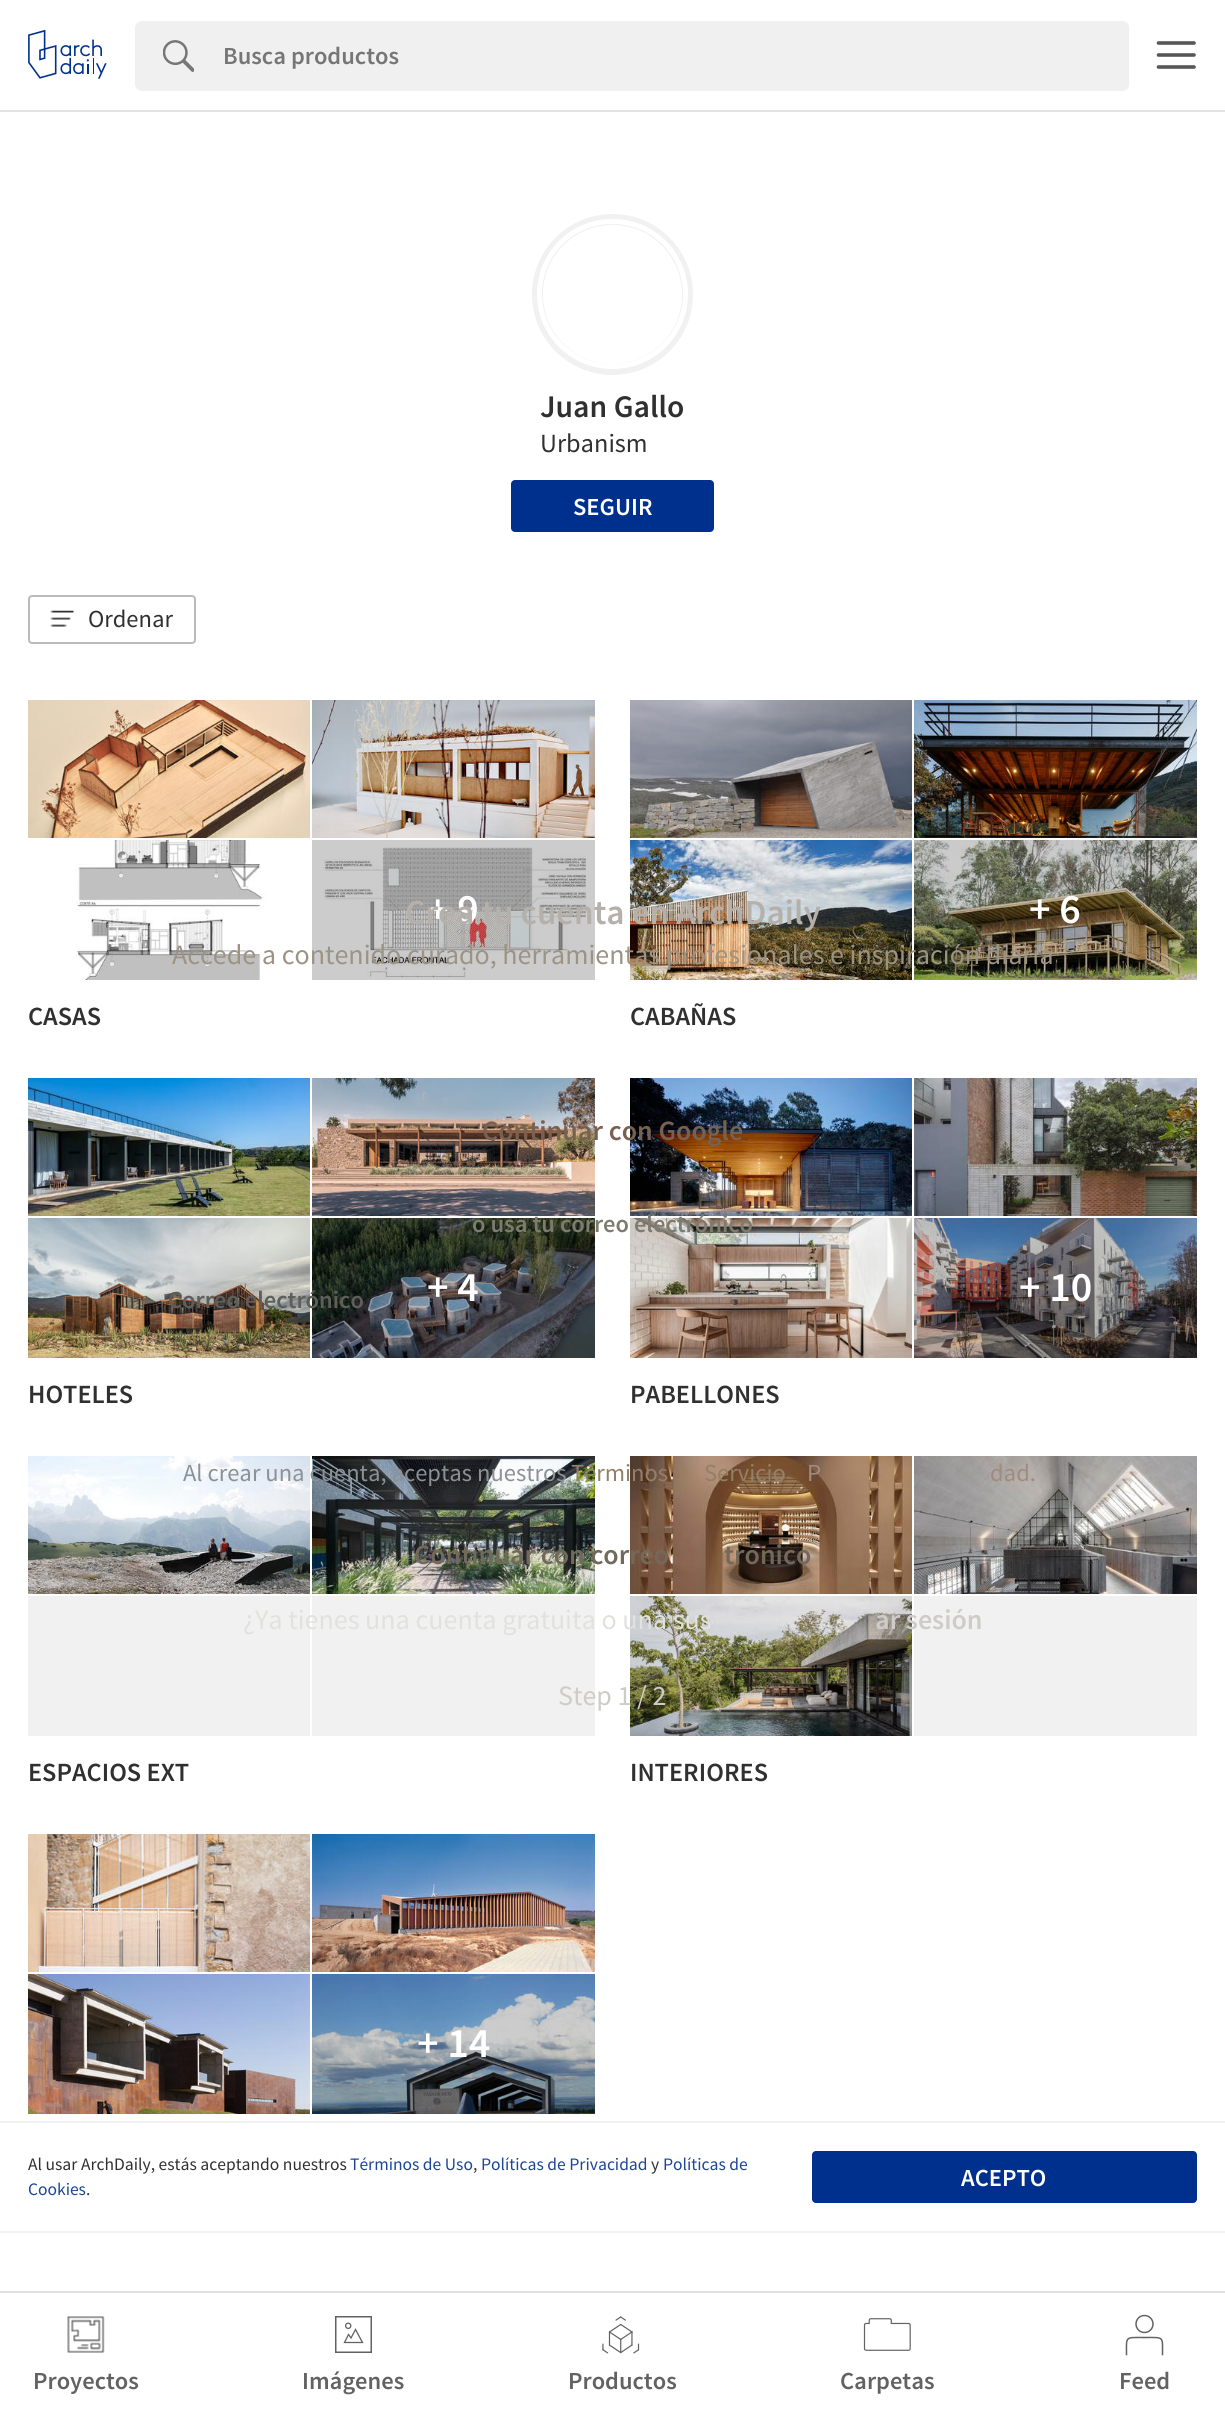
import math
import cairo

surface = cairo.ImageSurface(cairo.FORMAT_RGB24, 1225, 2422)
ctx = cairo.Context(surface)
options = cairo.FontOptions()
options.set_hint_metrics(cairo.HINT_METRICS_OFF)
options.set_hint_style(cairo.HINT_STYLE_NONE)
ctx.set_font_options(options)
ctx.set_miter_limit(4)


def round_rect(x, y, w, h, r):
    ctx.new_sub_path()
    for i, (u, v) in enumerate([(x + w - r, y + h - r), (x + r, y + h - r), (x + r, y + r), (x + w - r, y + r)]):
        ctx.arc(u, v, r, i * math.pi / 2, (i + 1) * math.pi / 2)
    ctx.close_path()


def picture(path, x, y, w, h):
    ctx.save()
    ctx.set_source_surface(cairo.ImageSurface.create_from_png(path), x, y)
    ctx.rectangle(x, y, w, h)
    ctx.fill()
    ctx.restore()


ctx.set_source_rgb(1, 1, 1)
ctx.paint()
ctx.set_source_rgb(0.882, 0.882, 0.882)
ctx.rectangle(0, 110, 1225, 2)
ctx.fill()
picture("img1.png", 28, 30, 79, 49)
ctx.set_source_rgb(0.941, 0.941, 0.941)
round_rect(135, 21, 994, 70, 7)
ctx.fill()
picture("img2.png", 163, 40, 31, 32)
ctx.new_path()
ctx.move_to(222, 21)
ctx.line_to(1122, 21)
ctx.curve_to(1126, 21, 1129, 24, 1129, 28)
ctx.line_to(1129, 84)
ctx.curve_to(1129, 88, 1126, 91, 1122, 91)
ctx.line_to(222, 91)
ctx.close_path()
ctx.fill()
ctx.select_font_face("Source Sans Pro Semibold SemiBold")
ctx.set_font_size(24.5)
ctx.set_source_rgb(0.463, 0.463, 0.463)
ctx.move_to(223, 64)
ctx.show_text("Busca productos")
ctx.new_path()
ctx.move_to(1158.5, 43)
ctx.line_to(1194, 43)
ctx.move_to(1158.5, 55)
ctx.line_to(1194, 55)
ctx.move_to(1158.5, 67)
ctx.line_to(1194, 67)
ctx.set_source_rgb(0.337, 0.337, 0.337)
ctx.set_line_width(3.6)
ctx.set_line_cap(cairo.LINE_CAP_ROUND)
ctx.stroke()
ctx.arc(612.5, 294.5, 75, 0, 2 * math.pi)
ctx.set_source_rgb(0.945, 0.945, 0.945)
ctx.set_line_width(11)
ctx.set_line_cap(cairo.LINE_CAP_BUTT)
ctx.stroke()
round_rect(539.5, 221.5, 146, 145, 72.5)
ctx.set_source_rgb(1, 1, 1)
ctx.set_line_width(5)
ctx.stroke()
ctx.set_font_size(31.5)
ctx.set_source_rgb(0.188, 0.188, 0.188)
ctx.move_to(540, 417)
ctx.show_text("Juan Gallo")
ctx.select_font_face("Source Sans Pro")
ctx.set_font_size(26.25)
ctx.move_to(540, 452)
ctx.show_text("Urbanism")
ctx.set_source_rgb(0, 0.188, 0.557)
round_rect(511, 480, 203, 52, 4)
ctx.fill()
ctx.select_font_face("Source Sans Pro Semibold SemiBold")
ctx.set_font_size(24.5)
ctx.set_source_rgb(1, 1, 1)
ctx.move_to(573, 515)
ctx.show_text("SEGUIR")
round_rect(29, 596, 166, 47, 3)
ctx.set_source_rgb(0.733, 0.733, 0.733)
ctx.set_line_width(2)
ctx.stroke()
picture("img3.png", 50, 610, 24, 17)
ctx.select_font_face("Source Sans Pro")
ctx.set_source_rgb(0.188, 0.188, 0.188)
ctx.move_to(88, 627)
ctx.show_text("Ordenar")
picture("img4.png", 28, 700, 282, 138)
picture("img5.png", 312, 700, 283, 138)
picture("img6.png", 28, 840, 282, 140)
picture("img7.png", 312, 840, 283, 140)
ctx.select_font_face("Source Sans Pro Semibold SemiBold")
ctx.set_font_size(42)
ctx.set_source_rgb(1, 1, 1)
ctx.move_to(427, 923)
ctx.show_text("+ 9")
ctx.set_font_size(26.25)
ctx.set_source_rgb(0.188, 0.188, 0.188)
ctx.move_to(28, 1025)
ctx.show_text("CASAS")
picture("img8.png", 630, 700, 282, 138)
picture("img9.png", 914, 700, 283, 138)
picture("img10.png", 630, 840, 282, 140)
picture("img11.png", 914, 840, 283, 140)
ctx.set_font_size(42)
ctx.set_source_rgb(1, 1, 1)
ctx.move_to(1029, 923)
ctx.show_text("+ 6")
ctx.set_font_size(26.25)
ctx.set_source_rgb(0.188, 0.188, 0.188)
ctx.move_to(630, 1025)
ctx.show_text("CABAÑAS")
picture("img12.png", 28, 1078, 282, 138)
picture("img13.png", 312, 1078, 283, 138)
picture("img14.png", 28, 1218, 282, 140)
picture("img15.png", 312, 1218, 283, 140)
ctx.set_font_size(42)
ctx.set_source_rgb(1, 1, 1)
ctx.move_to(427, 1301)
ctx.show_text("+ 4")
ctx.set_font_size(26.25)
ctx.set_source_rgb(0.188, 0.188, 0.188)
ctx.move_to(28, 1403)
ctx.show_text("HOTELES")
picture("img16.png", 630, 1078, 282, 138)
picture("img17.png", 914, 1078, 283, 138)
picture("img18.png", 630, 1218, 282, 140)
picture("img19.png", 914, 1218, 283, 140)
ctx.set_font_size(42)
ctx.set_source_rgb(1, 1, 1)
ctx.move_to(1019, 1301)
ctx.show_text("+ 10")
ctx.set_font_size(26.25)
ctx.set_source_rgb(0.188, 0.188, 0.188)
ctx.move_to(630, 1403)
ctx.show_text("PABELLONES")
picture("img20.png", 28, 1456, 282, 138)
picture("img21.png", 312, 1456, 283, 138)
ctx.set_source_rgb(0.945, 0.945, 0.945)
ctx.rectangle(28, 1596, 282, 140)
ctx.fill()
ctx.rectangle(312, 1596, 283, 140)
ctx.fill()
ctx.set_source_rgb(0.188, 0.188, 0.188)
ctx.move_to(28, 1781)
ctx.show_text("ESPACIOS EXT")
picture("img22.png", 630, 1456, 282, 138)
picture("img23.png", 914, 1456, 283, 138)
picture("img24.png", 630, 1596, 282, 140)
ctx.set_source_rgb(0.945, 0.945, 0.945)
ctx.rectangle(914, 1596, 283, 140)
ctx.fill()
ctx.set_source_rgb(0.188, 0.188, 0.188)
ctx.move_to(630, 1781)
ctx.show_text("INTERIORES")
picture("img25.png", 28, 1834, 282, 138)
picture("img26.png", 312, 1834, 283, 138)
picture("img27.png", 28, 1974, 282, 140)
picture("img28.png", 312, 1974, 283, 140)
ctx.set_font_size(42)
ctx.set_source_rgb(1, 1, 1)
ctx.move_to(417, 2057)
ctx.show_text("+ 14")
ctx.set_font_size(35)
ctx.set_source_rgb(0.71, 0.69, 0.667)
ctx.move_to(405, 924)
ctx.show_text("Crea tu cuenta en ArchDaily")
ctx.select_font_face("Source Sans Pro")
ctx.set_font_size(28)
ctx.set_source_rgb(0.612, 0.576, 0.522)
ctx.move_to(172, 964)
ctx.show_text("Accede a contenido curado, herramientas profesionales e inspiración diaria")
ctx.select_font_face("Source Sans Pro Semibold SemiBold")
ctx.set_source_rgb(0.471, 0.38, 0.318)
ctx.move_to(482, 1140)
ctx.show_text("Continuar con Google")
ctx.set_font_size(24.5)
ctx.set_source_rgb(0.49, 0.486, 0.439)
ctx.move_to(472, 1232)
ctx.show_text("o usa tu correo electrónico")
ctx.set_source_rgb(0.376, 0.369, 0.345)
ctx.move_to(168, 1308)
ctx.show_text("Correo electrónico")
ctx.select_font_face("Source Sans Pro")
ctx.set_source_rgb(0.549, 0.569, 0.588)
ctx.move_to(183, 1481)
ctx.show_text("Al crear una cuenta, aceptas nuestros")
ctx.set_source_rgb(0.58, 0.498, 0.404)
ctx.move_to(571, 1481)
ctx.show_text("Términos")
ctx.move_to(704, 1481)
ctx.show_text("Servicio")
ctx.set_source_rgb(0.627, 0.549, 0.494)
ctx.move_to(807, 1481)
ctx.show_text("P")
ctx.move_to(990, 1481)
ctx.show_text("dad.")
ctx.select_font_face("Source Sans Pro Semibold SemiBold")
ctx.set_font_size(28)
ctx.set_source_rgb(0.447, 0.412, 0.357)
ctx.move_to(414, 1564)
ctx.show_text("Continuar con correo")
ctx.move_to(724, 1564)
ctx.show_text("trónico")
ctx.select_font_face("Source Sans Pro")
ctx.set_source_rgb(0.882, 0.882, 0.871)
ctx.move_to(243, 1629)
ctx.show_text("¿Ya tienes una cuenta gratuita o una sus")
ctx.select_font_face("Source Sans Pro Semibold SemiBold")
ctx.set_source_rgb(0.808, 0.8, 0.784)
ctx.move_to(875, 1629)
ctx.show_text("ar sesión")
ctx.select_font_face("Source Sans Pro")
ctx.move_to(558, 1705)
ctx.show_text("Step 1 / 2")
ctx.set_source_rgb(0.882, 0.882, 0.882)
ctx.rectangle(0, 2291, 1225, 2)
ctx.fill()
ctx.set_source_rgb(0.945, 0.945, 0.945)
ctx.rectangle(0, 2121, 1225, 2)
ctx.fill()
ctx.rectangle(0, 2231, 1225, 2)
ctx.fill()
ctx.set_font_size(17.5)
ctx.set_source_rgb(0.188, 0.188, 0.188)
ctx.move_to(28, 2170)
ctx.show_text("Al usar ArchDaily, estás aceptando nuestros")
ctx.set_source_rgb(0.102, 0.271, 0.6)
ctx.move_to(350, 2170)
ctx.show_text("Términos de Uso")
ctx.set_source_rgb(0.188, 0.188, 0.188)
ctx.move_to(473, 2170)
ctx.show_text(",")
ctx.set_source_rgb(0.102, 0.271, 0.6)
ctx.move_to(481, 2170)
ctx.show_text("Políticas de Privacidad")
ctx.set_source_rgb(0.188, 0.188, 0.188)
ctx.move_to(651, 2170)
ctx.show_text("y")
ctx.set_source_rgb(0.102, 0.271, 0.6)
ctx.move_to(663, 2170)
ctx.show_text("Políticas de")
ctx.move_to(28, 2195)
ctx.show_text("Cookies")
ctx.set_source_rgb(0.188, 0.188, 0.188)
ctx.move_to(86, 2195)
ctx.show_text(".")
ctx.set_source_rgb(0, 0.188, 0.557)
round_rect(812, 2151, 385, 52, 4)
ctx.fill()
ctx.select_font_face("Source Sans Pro Semibold SemiBold")
ctx.set_font_size(24.5)
ctx.set_source_rgb(1, 1, 1)
ctx.move_to(961, 2186)
ctx.show_text("ACEPTO")
picture("img29.png", 67, 2316, 38, 37)
ctx.set_source_rgb(0.384, 0.384, 0.384)
ctx.move_to(33, 2389)
ctx.show_text("Proyectos")
ctx.rectangle(335.75, 2316.75, 35.5, 35.5)
ctx.set_line_width(1.5)
ctx.stroke()
ctx.new_path()
ctx.move_to(355.5, 2329.5)
ctx.line_to(362.5, 2342.5)
ctx.line_to(344.5, 2342.5)
ctx.line_to(348.5, 2334.5)
ctx.line_to(351, 2338)
ctx.close_path()
ctx.set_line_width(1.3)
ctx.set_line_cap(cairo.LINE_CAP_ROUND)
ctx.stroke()
ctx.arc(348.2, 2325.8, 2.6, 0, 2 * math.pi)
ctx.set_line_cap(cairo.LINE_CAP_BUTT)
ctx.stroke()
ctx.move_to(302, 2389)
ctx.show_text("Imágenes")
picture("img30.png", 602, 2316, 38, 38)
ctx.move_to(568, 2389)
ctx.show_text("Productos")
picture("img31.png", 863, 2318, 48, 33)
ctx.move_to(840, 2389)
ctx.show_text("Carpetas")
ctx.new_path()
ctx.arc(1144.5, 2324, 8.5, 0, 2 * math.pi)
ctx.set_line_width(1.5)
ctx.stroke()
ctx.new_path()
ctx.move_to(1162.5, 2354.5)
ctx.curve_to(1162.5, 2336, 1164.5, 2337.5, 1144.5, 2337.5)
ctx.curve_to(1124.5, 2337.5, 1126.5, 2336, 1126.5, 2354.5)
ctx.set_line_cap(cairo.LINE_CAP_SQUARE)
ctx.stroke()
ctx.move_to(1119, 2389)
ctx.show_text("Feed")
surface.write_to_png("page.png")
